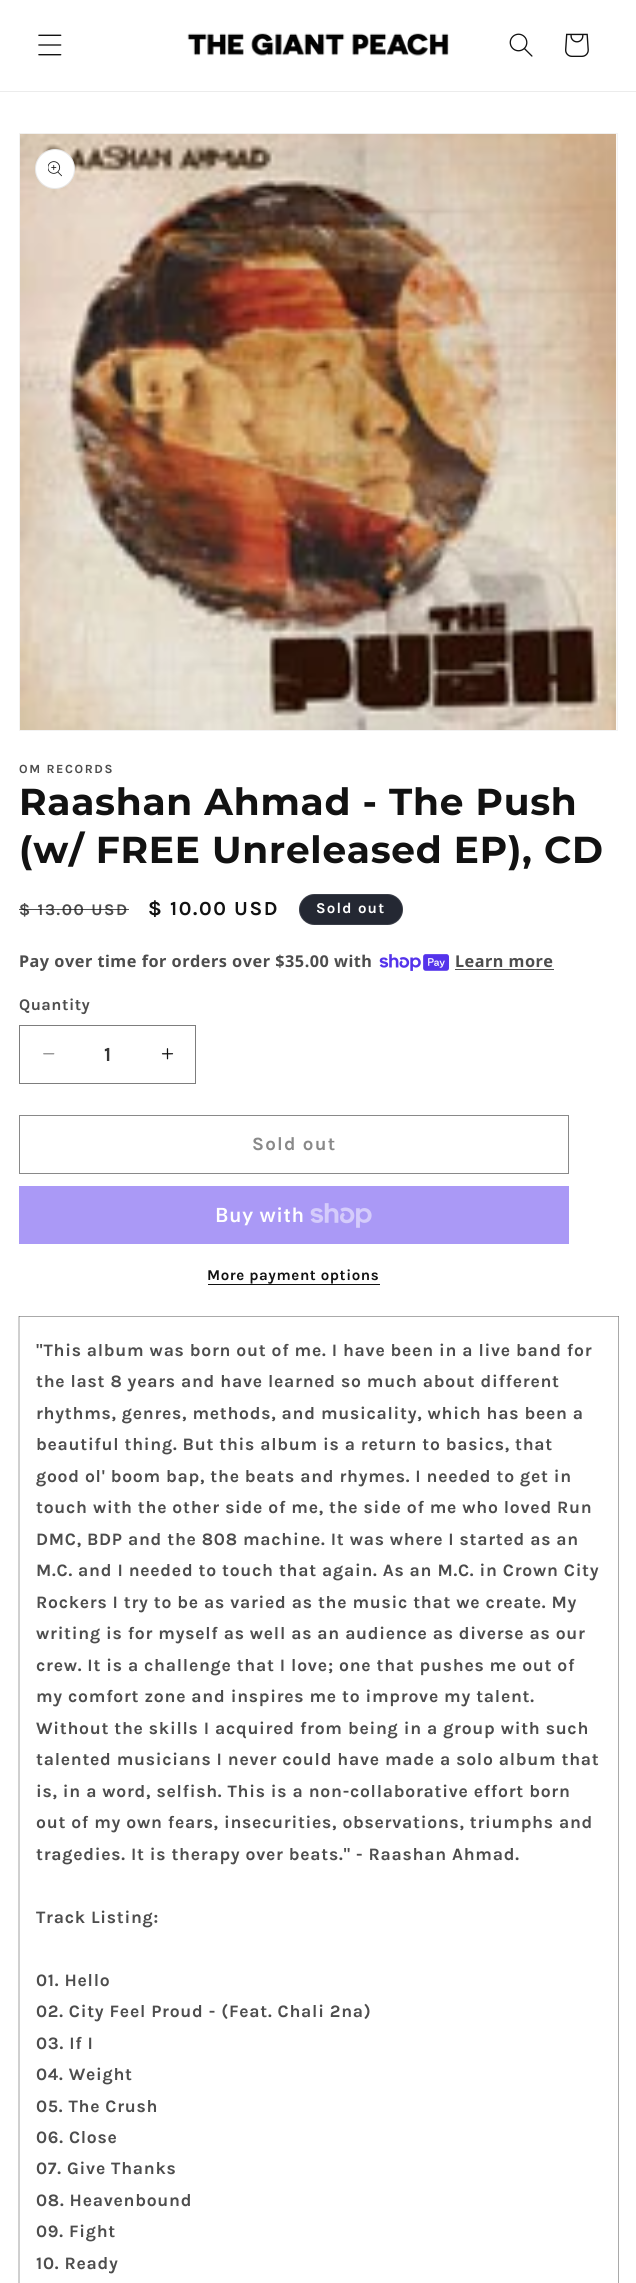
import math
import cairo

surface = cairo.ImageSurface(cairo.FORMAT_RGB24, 636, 2283)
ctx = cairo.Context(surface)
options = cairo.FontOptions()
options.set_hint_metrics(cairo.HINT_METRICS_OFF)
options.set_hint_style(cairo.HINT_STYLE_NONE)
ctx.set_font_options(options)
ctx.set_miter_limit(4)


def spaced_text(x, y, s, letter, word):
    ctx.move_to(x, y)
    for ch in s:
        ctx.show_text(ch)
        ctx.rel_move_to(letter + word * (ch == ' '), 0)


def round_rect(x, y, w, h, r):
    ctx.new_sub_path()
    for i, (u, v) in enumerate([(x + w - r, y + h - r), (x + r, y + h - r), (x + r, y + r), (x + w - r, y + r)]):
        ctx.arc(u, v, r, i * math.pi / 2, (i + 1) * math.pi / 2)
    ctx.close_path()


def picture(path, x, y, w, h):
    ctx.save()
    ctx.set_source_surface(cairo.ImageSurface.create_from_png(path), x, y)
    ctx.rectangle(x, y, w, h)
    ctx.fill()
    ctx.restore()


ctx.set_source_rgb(1, 1, 1)
ctx.paint()
ctx.set_source_rgb(0.925, 0.925, 0.925)
ctx.rectangle(0, 91, 636, 1)
ctx.fill()
picture("img1.png", 38, 34, 24, 22)
picture("img2.png", 187, 33, 262, 23)
picture("img3.png", 509, 33, 24, 24)
picture("img4.png", 565, 33, 24, 24)
ctx.rectangle(19.5, 133.5, 598, 597)
ctx.set_source_rgb(0.953, 0.953, 0.953)
ctx.set_line_width(1)
ctx.stroke()
picture("img5.png", 20, 133, 597, 597)
ctx.set_source_rgb(1, 1, 1)
ctx.arc(55, 169, 20, 0, 2 * math.pi)
ctx.fill()
ctx.arc(55, 169, 19.5, 0, 2 * math.pi)
ctx.set_source_rgba(0.071, 0.071, 0.071, 0.1)
ctx.stroke()
picture("img6.png", 48, 161, 14, 16)
ctx.select_font_face("Karla", cairo.FONT_SLANT_NORMAL, cairo.FONT_WEIGHT_BOLD)
ctx.set_font_size(12.5)
ctx.set_source_rgb(0.302, 0.302, 0.302)
spaced_text(19, 773, "OM RECORDS", 1.6, 0)
ctx.select_font_face("Montserrat", cairo.FONT_SLANT_NORMAL, cairo.FONT_WEIGHT_BOLD)
ctx.set_font_size(37.5)
ctx.set_source_rgb(0.071, 0.071, 0.071)
spaced_text(19, 815, "Raashan Ahmad - The Push", 0.75, 0)
spaced_text(19, 863, "(w/ FREE Unreleased EP), CD", 0.75, 0)
ctx.select_font_face("Karla", cairo.FONT_SLANT_NORMAL, cairo.FONT_WEIGHT_BOLD)
ctx.set_font_size(16.25)
ctx.set_source_rgb(0.302, 0.302, 0.302)
spaced_text(19, 915, "$ 13.00 USD", 1.6, 0)
ctx.set_source_rgba(0.071, 0.071, 0.071, 0.75)
ctx.rectangle(19, 909, 110, 1)
ctx.fill()
ctx.set_font_size(20)
ctx.set_source_rgb(0.071, 0.071, 0.071)
spaced_text(148, 915, "$ 10.00 USD", 1.6, 0)
ctx.set_source_rgb(0.141, 0.157, 0.2)
round_rect(299, 894, 104, 31, 15.5)
ctx.fill()
round_rect(299.5, 894.5, 103, 30, 15)
ctx.set_source_rgba(1, 1, 1, 0.1)
ctx.stroke()
ctx.set_font_size(15)
ctx.set_source_rgb(1, 1, 1)
spaced_text(316, 913, "Sold out", 1.25, 0)
ctx.select_font_face("Noto Sans", cairo.FONT_SLANT_NORMAL, cairo.FONT_WEIGHT_BOLD)
ctx.set_font_size(16.25)
ctx.set_source_rgb(0.302, 0.302, 0.302)
spaced_text(19, 967, "Pay over time for orders over $35.00 with", 0.5, 0)
picture("img7.png", 379, 954, 70, 17)
spaced_text(455, 967, "Learn more", 0.5, 0)
ctx.rectangle(455, 969, 99, 1)
ctx.fill()
ctx.select_font_face("Karla", cairo.FONT_SLANT_NORMAL, cairo.FONT_WEIGHT_BOLD)
spaced_text(19, 1010, "Quantity", 0.5, 0)
picture("img8.png", 43, 1053, 12, 2)
picture("img9.png", 161, 1048, 13, 12)
ctx.rectangle(19.5, 1025.5, 176, 58)
ctx.set_source_rgb(0.49, 0.49, 0.49)
ctx.stroke()
ctx.set_font_size(20)
ctx.set_source_rgb(0.212, 0.212, 0.212)
ctx.move_to(104, 1061)
ctx.show_text("1")
ctx.rectangle(19.5, 1115.5, 549, 58)
ctx.set_source_rgb(0.537, 0.537, 0.537)
ctx.stroke()
ctx.set_font_size(18.75)
spaced_text(252, 1150, "Sold out", 1.25, 0)
ctx.set_source_rgb(0.667, 0.6, 0.961)
ctx.rectangle(19, 1186, 550, 58)
ctx.fill()
ctx.select_font_face("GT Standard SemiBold")
ctx.set_font_size(20)
ctx.set_source_rgb(1, 1, 1)
spaced_text(215, 1222, "Buy with", 0.75, 0)
picture("img10.png", 310, 1203, 62, 25)
ctx.select_font_face("Karla", cairo.FONT_SLANT_NORMAL, cairo.FONT_WEIGHT_BOLD)
ctx.set_font_size(15)
ctx.set_source_rgb(0.071, 0.071, 0.071)
spaced_text(207, 1280, "More payment options", 0.6, 0)
ctx.rectangle(208, 1284, 172, 1)
ctx.fill()
ctx.rectangle(18.5, 1316.5, 600, 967)
ctx.set_source_rgb(0.816, 0.816, 0.816)
ctx.stroke()
ctx.set_source_rgb(0.667, 0.667, 0.667)
ctx.rectangle(19, 1316, 600, 1)
ctx.fill()
ctx.set_source_rgba(0.071, 0.071, 0.071, 0.2)
ctx.rectangle(618, 1316, 1, 967)
ctx.fill()
ctx.rectangle(19, 1316, 1, 967)
ctx.fill()
ctx.set_font_size(17.5)
ctx.set_source_rgb(0.302, 0.302, 0.302)
spaced_text(36, 1356, "\"This album was born out of me. I have been in a live band for", 0.75, 0)
spaced_text(36, 1387, "the last 8 years and have learned so much about different", 0.75, 0)
spaced_text(36, 1419, "rhythms, genres, methods, and musicality, which has been a", 0.75, 0)
spaced_text(36, 1450, "beautiful thing. But this album is a return to basics, that", 0.75, 0)
spaced_text(36, 1482, "good ol' boom bap, the beats and rhymes. I needed to get in", 0.75, 0)
spaced_text(36, 1513, "touch with the other side of me, the side of me who loved Run", 0.75, 0)
spaced_text(36, 1545, "DMC, BDP and the 808 machine. It was where I started as an", 0.75, 0)
spaced_text(36, 1576, "M.C. and I needed to touch that again. As an M.C. in Crown City", 0.75, 0)
spaced_text(36, 1608, "Rockers I try to be as varied as the music that we create. My", 0.75, 0)
spaced_text(36, 1639, "writing is for myself as well as an audience as diverse as our", 0.75, 0)
spaced_text(36, 1671, "crew. It is a challenge that I love; one that pushes me out of", 0.75, 0)
spaced_text(36, 1702, "my comfort zone and inspires me to improve my talent.", 0.75, 0)
spaced_text(36, 1734, "Without the skills I acquired from being in a group with such", 0.75, 0)
spaced_text(36, 1765, "talented musicians I never could have made a solo album that", 0.75, 0)
spaced_text(36, 1797, "is, in a word, selfish. This is a non-collaborative effort born", 0.75, 0)
spaced_text(36, 1828, "out of my own fears, insecurities, observations, triumphs and", 0.75, 0)
spaced_text(36, 1860, "tragedies. It is therapy over beats.\" - Raashan Ahmad.", 0.75, 0)
spaced_text(36, 1923, "Track Listing:", 0.75, 0)
spaced_text(36, 1986, "01. Hello", 0.75, 0)
spaced_text(36, 2017, "02. City Feel Proud - (Feat. Chali 2na)", 0.75, 0)
spaced_text(36, 2049, "03. If I", 0.75, 0)
spaced_text(36, 2080, "04. Weight", 0.75, 0)
spaced_text(36, 2112, "05. The Crush", 0.75, 0)
spaced_text(36, 2143, "06. Close", 0.75, 0)
spaced_text(36, 2174, "07. Give Thanks", 0.75, 0)
spaced_text(36, 2206, "08. Heavenbound", 0.75, 0)
spaced_text(36, 2237, "09. Fight", 0.75, 0)
spaced_text(36, 2269, "10. Ready", 0.75, 0)
surface.write_to_png("page.png")
